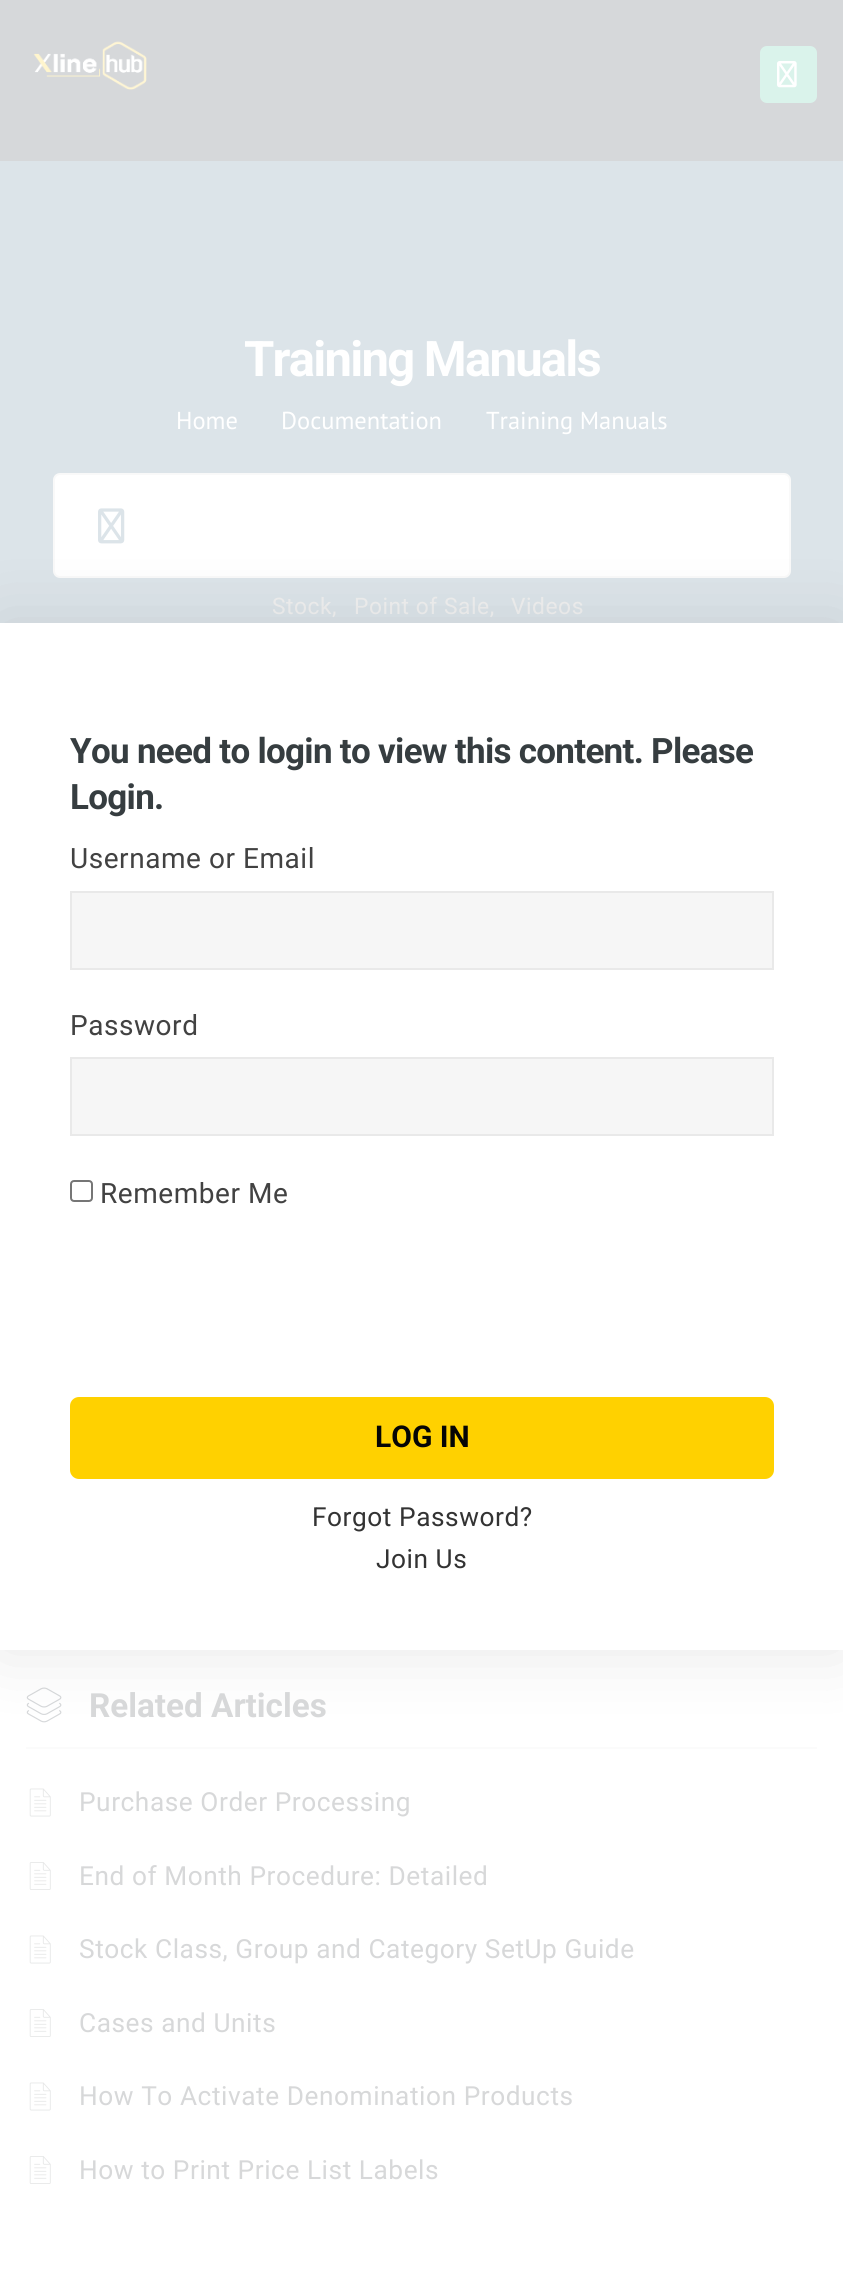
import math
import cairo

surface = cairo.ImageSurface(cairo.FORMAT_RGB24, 843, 2273)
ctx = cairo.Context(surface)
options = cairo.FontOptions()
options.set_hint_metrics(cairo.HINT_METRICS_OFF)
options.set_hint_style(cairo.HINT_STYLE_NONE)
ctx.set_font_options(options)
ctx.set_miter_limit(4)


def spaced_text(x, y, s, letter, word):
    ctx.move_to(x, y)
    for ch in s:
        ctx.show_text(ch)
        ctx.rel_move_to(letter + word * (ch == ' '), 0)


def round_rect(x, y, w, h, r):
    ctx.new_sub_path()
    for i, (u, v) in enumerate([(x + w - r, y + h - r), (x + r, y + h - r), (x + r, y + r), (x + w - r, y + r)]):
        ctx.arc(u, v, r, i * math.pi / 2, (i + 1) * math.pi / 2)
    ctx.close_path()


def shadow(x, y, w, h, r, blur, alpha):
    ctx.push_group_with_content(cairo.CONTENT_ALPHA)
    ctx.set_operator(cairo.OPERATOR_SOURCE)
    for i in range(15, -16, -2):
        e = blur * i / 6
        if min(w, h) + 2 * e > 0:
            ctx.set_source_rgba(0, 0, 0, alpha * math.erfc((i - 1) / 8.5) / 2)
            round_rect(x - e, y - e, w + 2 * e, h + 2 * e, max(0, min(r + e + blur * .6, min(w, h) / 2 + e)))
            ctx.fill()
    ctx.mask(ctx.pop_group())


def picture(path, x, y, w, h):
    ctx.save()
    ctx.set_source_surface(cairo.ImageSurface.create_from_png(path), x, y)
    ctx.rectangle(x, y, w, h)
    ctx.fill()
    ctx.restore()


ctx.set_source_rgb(1, 1, 1)
ctx.paint()
ctx.set_source_rgb(0.839, 0.847, 0.855)
ctx.rectangle(0, 0, 843, 161)
ctx.fill()
picture("img1.png", 33, 41, 114, 49)
ctx.set_source_rgb(0.855, 0.953, 0.918)
round_rect(760, 46, 57, 57, 7)
ctx.fill()
picture("img2.png", 777, 61, 20, 27)
ctx.set_source_rgb(0.863, 0.894, 0.914)
ctx.rectangle(0, 161, 843, 462)
ctx.fill()
ctx.select_font_face("Roboto", cairo.FONT_SLANT_NORMAL, cairo.FONT_WEIGHT_BOLD)
ctx.set_font_size(49)
ctx.set_source_rgb(1, 1, 1)
spaced_text(244, 376, "Training Manuals", -1.75, 0)
ctx.select_font_face("PT Sans")
ctx.set_font_size(24.5)
ctx.move_to(176, 429)
ctx.show_text("Home")
ctx.move_to(281, 429)
ctx.show_text("Documentation")
ctx.move_to(486, 429)
ctx.show_text("Training Manuals")
round_rect(54, 474, 736, 103, 6)
ctx.fill_preserve()
ctx.set_source_rgb(0.973, 0.976, 0.976)
ctx.stroke()
picture("img3.png", 98, 508, 27, 36)
ctx.select_font_face("Roboto")
ctx.set_font_size(22.75)
ctx.set_source_rgb(0.941, 0.941, 0.941)
spaced_text(272, 614, "Stock,", 0.55, 0)
spaced_text(354, 614, "Point of Sale,", 0.55, 0)
spaced_text(511, 614, "Videos", 0.55, 0)
picture("img4.png", 26, 1687, 36, 36)
ctx.set_source_rgb(0.984, 0.984, 0.984)
ctx.rectangle(26, 1747, 791, 2)
ctx.fill()
ctx.set_source_rgb(0, 0, 0)
shadow(0, 623, 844, 1027, 0, 35, 0.1)
ctx.set_source_rgb(1, 1, 1)
ctx.rectangle(0, 623, 843, 1027)
ctx.fill()
ctx.select_font_face("Roboto", cairo.FONT_SLANT_NORMAL, cairo.FONT_WEIGHT_BOLD)
ctx.set_font_size(35)
ctx.set_source_rgb(0.212, 0.239, 0.251)
spaced_text(70, 763, "You need to login to view this content. Please", -0.7, 0)
spaced_text(70, 809, "Login.", -0.7, 0)
ctx.select_font_face("Roboto")
ctx.set_font_size(28)
ctx.set_source_rgb(0.259, 0.259, 0.259)
spaced_text(70, 868, "Username or Email", 0.55, 0)
ctx.set_source_rgb(0.961, 0.961, 0.961)
ctx.rectangle(71, 892, 702, 77)
ctx.fill_preserve()
ctx.set_source_rgb(0.914, 0.914, 0.914)
ctx.stroke()
ctx.set_source_rgb(0.259, 0.259, 0.259)
spaced_text(70, 1035, "Password", 0.55, 0)
ctx.set_source_rgb(0.961, 0.961, 0.961)
ctx.rectangle(71, 1058, 702, 77)
ctx.fill_preserve()
ctx.set_source_rgb(0.914, 0.914, 0.914)
ctx.stroke()
round_rect(71, 1181, 21, 20, 3)
ctx.set_source_rgb(0.463, 0.463, 0.463)
ctx.stroke()
ctx.set_source_rgb(0.259, 0.259, 0.259)
spaced_text(100, 1203, "Remember Me", 0.55, 0)
ctx.set_source_rgb(1, 0.82, 0)
round_rect(70, 1397, 704, 82, 9)
ctx.fill()
ctx.select_font_face("Roboto", cairo.FONT_SLANT_NORMAL, cairo.FONT_WEIGHT_BOLD)
ctx.set_font_size(30)
ctx.set_source_rgb(0.02, 0.02, 0.02)
ctx.move_to(375, 1447)
ctx.show_text("LOG IN")
ctx.select_font_face("Roboto")
ctx.set_font_size(26.25)
ctx.set_source_rgb(0.2, 0.2, 0.2)
spaced_text(312, 1526, "Forgot Password?", 0.55, 0)
spaced_text(376, 1568, "Join Us", 0.55, 0)
ctx.select_font_face("Roboto", cairo.FONT_SLANT_NORMAL, cairo.FONT_WEIGHT_BOLD)
ctx.set_font_size(33.25)
ctx.set_source_rgb(0.843, 0.847, 0.851)
ctx.move_to(89, 1717)
ctx.show_text("Related Articles")
picture("img5.png", 29, 1788, 22, 29)
ctx.select_font_face("Roboto")
ctx.set_font_size(26.25)
spaced_text(79, 1811, "Purchase Order Processing", 0.55, 0)
picture("img6.png", 29, 1862, 22, 28)
spaced_text(79, 1885, "End of Month Procedure: Detailed", 0.55, 0)
picture("img5.png", 29, 1935, 22, 29)
spaced_text(79, 1958, "Stock Class, Group and Category SetUp Guide", 0.55, 0)
picture("img6.png", 29, 2009, 22, 28)
spaced_text(79, 2032, "Cases and Units", 0.55, 0)
picture("img5.png", 29, 2082, 22, 29)
spaced_text(79, 2105, "How To Activate Denomination Products", 0.55, 0)
picture("img6.png", 29, 2156, 22, 28)
spaced_text(79, 2179, "How to Print Price List Labels", 0.55, 0)
surface.write_to_png("page.png")
